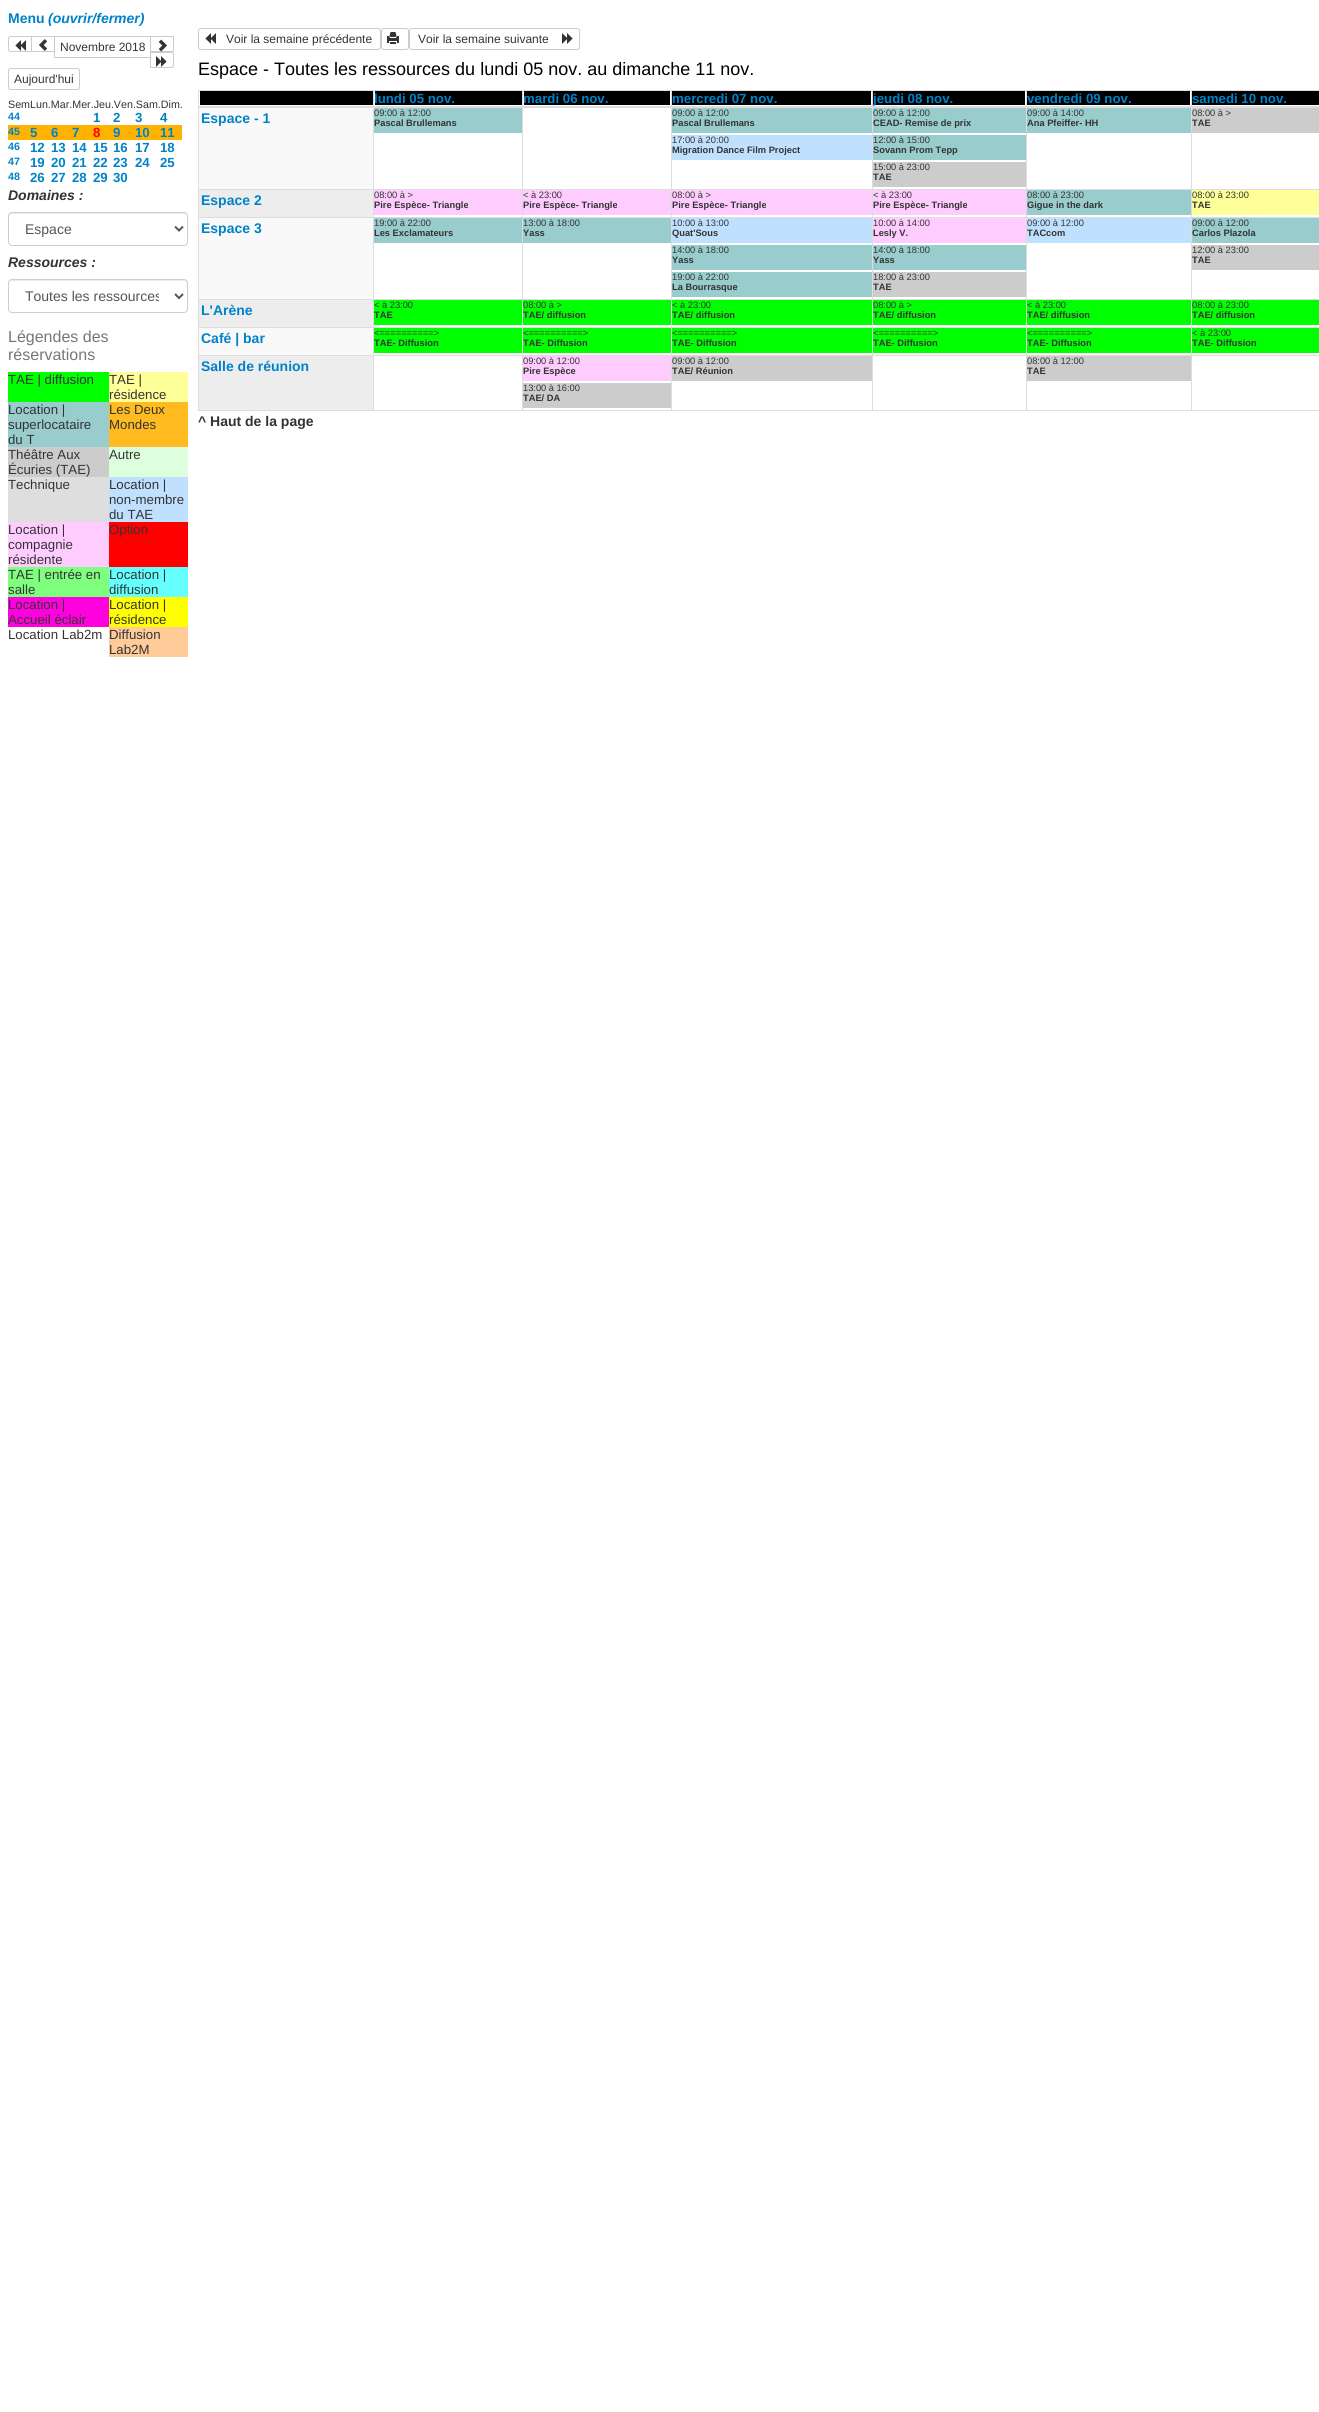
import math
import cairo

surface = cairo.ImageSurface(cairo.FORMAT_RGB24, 1319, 2412)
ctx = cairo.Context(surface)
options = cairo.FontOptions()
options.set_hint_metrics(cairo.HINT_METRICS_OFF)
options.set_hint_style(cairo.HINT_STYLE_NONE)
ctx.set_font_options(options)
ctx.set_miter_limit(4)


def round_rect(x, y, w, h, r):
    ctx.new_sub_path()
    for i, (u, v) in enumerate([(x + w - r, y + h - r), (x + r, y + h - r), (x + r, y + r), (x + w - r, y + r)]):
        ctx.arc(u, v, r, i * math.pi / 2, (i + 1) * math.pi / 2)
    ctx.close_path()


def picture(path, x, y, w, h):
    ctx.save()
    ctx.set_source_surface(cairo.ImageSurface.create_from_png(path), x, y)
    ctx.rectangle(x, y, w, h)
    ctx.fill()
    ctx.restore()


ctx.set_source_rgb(1, 1, 1)
ctx.paint()
ctx.select_font_face("Liberation Sans", cairo.FONT_SLANT_NORMAL, cairo.FONT_WEIGHT_BOLD)
ctx.set_font_size(14)
ctx.set_source_rgb(0, 0.51, 0.784)
ctx.move_to(8, 23)
ctx.show_text("Menu")
ctx.select_font_face("Liberation Sans", cairo.FONT_SLANT_ITALIC, cairo.FONT_WEIGHT_BOLD)
ctx.move_to(48, 23)
ctx.show_text("(ouvrir/fermer)")
ctx.new_path()
ctx.move_to(11, 36.5)
ctx.line_to(31.5, 36.5)
ctx.line_to(31.5, 51.5)
ctx.line_to(11, 51.5)
ctx.curve_to(9.5, 51.5, 8.5, 50.5, 8.5, 49)
ctx.line_to(8.5, 39)
ctx.curve_to(8.5, 37.5, 9.5, 36.5, 11, 36.5)
ctx.close_path()
ctx.set_source_rgb(0.8, 0.8, 0.8)
ctx.set_line_width(1)
ctx.stroke()
picture("img1.png", 15, 40, 11, 11)
ctx.rectangle(31.5, 36.5, 23, 15)
ctx.stroke()
picture("img2.png", 39, 39, 9, 12)
ctx.rectangle(54.5, 36.5, 96, 21)
ctx.stroke()
ctx.select_font_face("Liberation Sans")
ctx.set_font_size(12)
ctx.set_source_rgb(0.2, 0.2, 0.2)
ctx.move_to(60, 51)
ctx.show_text("Novembre 2018")
ctx.rectangle(150.5, 36.5, 23, 15)
ctx.set_source_rgb(0.8, 0.8, 0.8)
ctx.stroke()
picture("img3.png", 158, 39, 9, 13)
ctx.set_source_rgb(1, 1, 1)
ctx.new_path()
ctx.move_to(150.5, 52.5)
ctx.line_to(171, 52.5)
ctx.curve_to(172.5, 52.5, 173.5, 53.5, 173.5, 55)
ctx.line_to(173.5, 65)
ctx.curve_to(173.5, 66.5, 172.5, 67.5, 171, 67.5)
ctx.line_to(150.5, 67.5)
ctx.close_path()
ctx.fill_preserve()
ctx.set_source_rgb(0.8, 0.8, 0.8)
ctx.stroke()
picture("img4.png", 156, 56, 11, 11)
round_rect(8.5, 68.5, 71, 21, 2.5)
ctx.stroke()
ctx.set_source_rgb(0.2, 0.2, 0.2)
ctx.move_to(14, 83)
ctx.show_text("Aujourd'hui")
ctx.set_font_size(10.7)
ctx.move_to(8, 108)
ctx.show_text("SemLun.Mar.Mer.Jeu.Ven.Sam.Dim.")
ctx.select_font_face("Liberation Sans", cairo.FONT_SLANT_NORMAL, cairo.FONT_WEIGHT_BOLD)
ctx.set_source_rgb(0, 0.51, 0.784)
ctx.move_to(8, 120)
ctx.show_text("44")
ctx.set_font_size(13.25)
ctx.move_to(93, 122)
ctx.show_text("1")
ctx.move_to(113, 122)
ctx.show_text("2")
ctx.move_to(135, 122)
ctx.show_text("3")
ctx.move_to(160, 122)
ctx.show_text("4")
ctx.set_source_rgb(1, 0.698, 0)
ctx.rectangle(8, 125, 174, 15)
ctx.fill()
ctx.set_font_size(10.7)
ctx.set_source_rgb(0, 0.51, 0.784)
ctx.move_to(8, 135)
ctx.show_text("45")
ctx.set_font_size(13.25)
ctx.move_to(30, 137)
ctx.show_text("5")
ctx.move_to(51, 137)
ctx.show_text("6")
ctx.move_to(72, 137)
ctx.show_text("7")
ctx.set_source_rgb(1, 0, 0)
ctx.move_to(93, 137)
ctx.show_text("8")
ctx.set_source_rgb(0, 0.51, 0.784)
ctx.move_to(113, 137)
ctx.show_text("9")
ctx.move_to(135, 137)
ctx.show_text("10")
ctx.move_to(160, 137)
ctx.show_text("11")
ctx.set_font_size(10.7)
ctx.move_to(8, 150)
ctx.show_text("46")
ctx.set_font_size(13.25)
ctx.move_to(30, 152)
ctx.show_text("12")
ctx.move_to(51, 152)
ctx.show_text("13")
ctx.move_to(72, 152)
ctx.show_text("14")
ctx.move_to(93, 152)
ctx.show_text("15")
ctx.move_to(113, 152)
ctx.show_text("16")
ctx.move_to(135, 152)
ctx.show_text("17")
ctx.move_to(160, 152)
ctx.show_text("18")
ctx.set_font_size(10.7)
ctx.move_to(8, 165)
ctx.show_text("47")
ctx.set_font_size(13.25)
ctx.move_to(30, 167)
ctx.show_text("19")
ctx.move_to(51, 167)
ctx.show_text("20")
ctx.move_to(72, 167)
ctx.show_text("21")
ctx.move_to(93, 167)
ctx.show_text("22")
ctx.move_to(113, 167)
ctx.show_text("23")
ctx.move_to(135, 167)
ctx.show_text("24")
ctx.move_to(160, 167)
ctx.show_text("25")
ctx.set_font_size(10.7)
ctx.move_to(8, 180)
ctx.show_text("48")
ctx.set_font_size(13.25)
ctx.move_to(30, 182)
ctx.show_text("26")
ctx.move_to(51, 182)
ctx.show_text("27")
ctx.move_to(72, 182)
ctx.show_text("28")
ctx.move_to(93, 182)
ctx.show_text("29")
ctx.move_to(113, 182)
ctx.show_text("30")
ctx.select_font_face("Liberation Sans", cairo.FONT_SLANT_ITALIC, cairo.FONT_WEIGHT_BOLD)
ctx.set_font_size(14)
ctx.set_source_rgb(0.2, 0.2, 0.2)
ctx.move_to(8, 200)
ctx.show_text("Domaines :")
ctx.set_source_rgb(0.925, 0.925, 0.925)
ctx.new_path()
ctx.move_to(12, 214)
ctx.line_to(184, 214)
ctx.curve_to(186, 214, 187, 215, 187, 217)
ctx.line_to(187, 216)
ctx.curve_to(187, 214, 186, 213, 184, 213)
ctx.line_to(12, 213)
ctx.curve_to(10, 213, 9, 214, 9, 216)
ctx.line_to(9, 217)
ctx.curve_to(9, 215, 10, 214, 12, 214)
ctx.close_path()
ctx.fill()
round_rect(8.5, 212.5, 179, 33, 3.5)
ctx.set_source_rgb(0.8, 0.8, 0.8)
ctx.stroke()
ctx.new_path()
ctx.move_to(175, 226.5)
ctx.line_to(179, 230.5)
ctx.line_to(183, 226.5)
ctx.set_source_rgb(0.333, 0.333, 0.333)
ctx.set_line_width(2)
ctx.stroke()
ctx.select_font_face("Liberation Sans")
ctx.move_to(25, 234)
ctx.show_text("Espace")
ctx.select_font_face("Liberation Sans", cairo.FONT_SLANT_ITALIC, cairo.FONT_WEIGHT_BOLD)
ctx.set_source_rgb(0.2, 0.2, 0.2)
ctx.move_to(8, 267)
ctx.show_text("Ressources :")
ctx.set_source_rgb(0.925, 0.925, 0.925)
ctx.new_path()
ctx.move_to(12, 281)
ctx.line_to(184, 281)
ctx.curve_to(186, 281, 187, 282, 187, 284)
ctx.line_to(187, 283)
ctx.curve_to(187, 281, 186, 280, 184, 280)
ctx.line_to(12, 280)
ctx.curve_to(10, 280, 9, 281, 9, 283)
ctx.line_to(9, 284)
ctx.curve_to(9, 282, 10, 281, 12, 281)
ctx.close_path()
ctx.fill()
round_rect(8.5, 279.5, 179, 33, 3.5)
ctx.set_source_rgb(0.8, 0.8, 0.8)
ctx.set_line_width(1)
ctx.stroke()
ctx.new_path()
ctx.move_to(175, 294)
ctx.line_to(179, 298)
ctx.line_to(183, 294)
ctx.set_source_rgb(0.333, 0.333, 0.333)
ctx.set_line_width(2)
ctx.stroke()
ctx.save()
ctx.rectangle(25, 287, 134, 18)
ctx.clip()
ctx.select_font_face("Liberation Sans")
ctx.move_to(25, 301)
ctx.show_text("Toutes les ressources")
ctx.restore()
ctx.select_font_face("Liberation Sans")
ctx.set_font_size(16)
ctx.set_source_rgb(0.467, 0.467, 0.467)
ctx.move_to(8, 342)
ctx.show_text("Légendes des")
ctx.move_to(8, 360)
ctx.show_text("réservations")
ctx.set_source_rgb(0, 1, 0)
ctx.rectangle(8, 372, 101, 30)
ctx.fill()
ctx.set_font_size(13.25)
ctx.set_source_rgb(0.2, 0.2, 0.2)
ctx.move_to(8, 384)
ctx.show_text("TAE | diffusion")
ctx.set_source_rgb(1, 1, 0.6)
ctx.rectangle(109, 372, 79, 30)
ctx.fill()
ctx.set_source_rgb(0.2, 0.2, 0.2)
ctx.move_to(109, 384)
ctx.show_text("TAE |")
ctx.move_to(109, 399)
ctx.show_text("résidence")
ctx.set_source_rgb(0.6, 0.8, 0.8)
ctx.rectangle(8, 402, 101, 45)
ctx.fill()
ctx.set_source_rgb(0.2, 0.2, 0.2)
ctx.move_to(8, 414)
ctx.show_text("Location |")
ctx.move_to(8, 429)
ctx.show_text("superlocataire")
ctx.move_to(8, 444)
ctx.show_text("du T")
ctx.set_source_rgb(1, 0.733, 0.125)
ctx.rectangle(109, 402, 79, 45)
ctx.fill()
ctx.set_source_rgb(0.2, 0.2, 0.2)
ctx.move_to(109, 414)
ctx.show_text("Les Deux")
ctx.move_to(109, 429)
ctx.show_text("Mondes")
ctx.set_source_rgb(0.8, 0.8, 0.8)
ctx.rectangle(8, 447, 101, 30)
ctx.fill()
ctx.set_source_rgb(0.2, 0.2, 0.2)
ctx.move_to(8, 459)
ctx.show_text("Théâtre Aux")
ctx.move_to(8, 474)
ctx.show_text("Écuries (TAE)")
ctx.set_source_rgb(0.867, 1, 0.867)
ctx.rectangle(109, 447, 79, 30)
ctx.fill()
ctx.set_source_rgb(0.2, 0.2, 0.2)
ctx.move_to(109, 459)
ctx.show_text("Autre")
ctx.set_source_rgb(0.871, 0.871, 0.871)
ctx.rectangle(8, 477, 101, 45)
ctx.fill()
ctx.set_source_rgb(0.2, 0.2, 0.2)
ctx.move_to(8, 489)
ctx.show_text("Technique")
ctx.set_source_rgb(0.753, 0.878, 1)
ctx.rectangle(109, 477, 79, 45)
ctx.fill()
ctx.set_source_rgb(0.2, 0.2, 0.2)
ctx.move_to(109, 489)
ctx.show_text("Location |")
ctx.move_to(109, 504)
ctx.show_text("non-membre")
ctx.move_to(109, 519)
ctx.show_text("du TAE")
ctx.set_source_rgb(1, 0.8, 1)
ctx.rectangle(8, 522, 101, 45)
ctx.fill()
ctx.set_source_rgb(0.2, 0.2, 0.2)
ctx.move_to(8, 534)
ctx.show_text("Location |")
ctx.move_to(8, 549)
ctx.show_text("compagnie")
ctx.move_to(8, 564)
ctx.show_text("résidente")
ctx.set_source_rgb(1, 0, 0)
ctx.rectangle(109, 522, 79, 45)
ctx.fill()
ctx.set_source_rgb(0.2, 0.2, 0.2)
ctx.move_to(109, 534)
ctx.show_text("Option")
ctx.set_source_rgb(0.494, 1, 0.494)
ctx.rectangle(8, 567, 101, 30)
ctx.fill()
ctx.set_source_rgb(0.2, 0.2, 0.2)
ctx.move_to(8, 579)
ctx.show_text("TAE | entrée en")
ctx.move_to(8, 594)
ctx.show_text("salle")
ctx.set_source_rgb(0.4, 1, 1)
ctx.rectangle(109, 567, 79, 30)
ctx.fill()
ctx.set_source_rgb(0.2, 0.2, 0.2)
ctx.move_to(109, 579)
ctx.show_text("Location |")
ctx.move_to(109, 594)
ctx.show_text("diffusion")
ctx.set_source_rgb(1, 0, 0.871)
ctx.rectangle(8, 597, 101, 30)
ctx.fill()
ctx.set_source_rgb(0.2, 0.2, 0.2)
ctx.move_to(8, 609)
ctx.show_text("Location |")
ctx.move_to(8, 624)
ctx.show_text("Accueil éclair")
ctx.set_source_rgb(1, 1, 0)
ctx.rectangle(109, 597, 79, 30)
ctx.fill()
ctx.set_source_rgb(0.2, 0.2, 0.2)
ctx.move_to(109, 609)
ctx.show_text("Location |")
ctx.move_to(109, 624)
ctx.show_text("résidence")
ctx.move_to(8, 639)
ctx.show_text("Location Lab2m")
ctx.set_source_rgb(1, 0.8, 0.6)
ctx.rectangle(109, 627, 79, 30)
ctx.fill()
ctx.set_source_rgb(0.2, 0.2, 0.2)
ctx.move_to(109, 639)
ctx.show_text("Diffusion")
ctx.move_to(109, 654)
ctx.show_text("Lab2M")
round_rect(198.5, 28.5, 182, 21, 2.5)
ctx.set_source_rgb(0.8, 0.8, 0.8)
ctx.set_line_width(1)
ctx.stroke()
picture("img1.png", 205, 33, 11, 11)
ctx.set_font_size(12)
ctx.set_source_rgb(0.2, 0.2, 0.2)
ctx.move_to(226, 43)
ctx.show_text("Voir la semaine précédente")
round_rect(381.5, 28.5, 27, 21, 2.5)
ctx.set_source_rgb(0.8, 0.8, 0.8)
ctx.stroke()
picture("img5.png", 387, 32, 12, 12)
round_rect(409.5, 28.5, 170, 21, 2.5)
ctx.stroke()
ctx.set_source_rgb(0.2, 0.2, 0.2)
ctx.move_to(418, 43)
ctx.show_text("Voir la semaine suivante")
picture("img4.png", 562, 33, 11, 11)
ctx.set_font_size(18)
ctx.set_source_rgb(0, 0, 0)
ctx.move_to(198, 75)
ctx.show_text("Espace - Toutes les ressources du lundi 05 nov. au dimanche 11 nov.")
ctx.rectangle(200, 91, 173, 14)
ctx.fill()
ctx.set_source_rgb(0.867, 0.867, 0.867)
ctx.rectangle(1191, 90, 128, 1)
ctx.fill()
ctx.rectangle(1191, 189, 128, 1)
ctx.fill()
ctx.rectangle(1191, 217, 128, 1)
ctx.fill()
ctx.rectangle(1191, 299, 128, 1)
ctx.fill()
ctx.rectangle(1191, 327, 128, 1)
ctx.fill()
ctx.rectangle(1191, 355, 128, 1)
ctx.fill()
ctx.rectangle(1191, 410, 128, 1)
ctx.fill()
ctx.rectangle(1191, 355, 1, 56)
ctx.fill()
ctx.rectangle(1026, 355, 166, 1)
ctx.fill()
ctx.rectangle(1191, 327, 1, 29)
ctx.fill()
ctx.rectangle(1026, 327, 166, 1)
ctx.fill()
ctx.rectangle(1191, 299, 1, 29)
ctx.fill()
ctx.rectangle(1026, 299, 166, 1)
ctx.fill()
ctx.rectangle(1191, 217, 1, 83)
ctx.fill()
ctx.rectangle(1026, 217, 166, 1)
ctx.fill()
ctx.rectangle(1191, 189, 1, 29)
ctx.fill()
ctx.rectangle(1026, 189, 166, 1)
ctx.fill()
ctx.rectangle(1191, 106, 1, 84)
ctx.fill()
ctx.rectangle(1191, 90, 1, 17)
ctx.fill()
ctx.rectangle(1026, 90, 166, 1)
ctx.fill()
ctx.rectangle(1026, 410, 166, 1)
ctx.fill()
ctx.rectangle(1026, 355, 1, 56)
ctx.fill()
ctx.rectangle(872, 355, 155, 1)
ctx.fill()
ctx.rectangle(1026, 327, 1, 29)
ctx.fill()
ctx.rectangle(872, 327, 155, 1)
ctx.fill()
ctx.rectangle(1026, 299, 1, 29)
ctx.fill()
ctx.rectangle(872, 299, 155, 1)
ctx.fill()
ctx.rectangle(1026, 217, 1, 83)
ctx.fill()
ctx.rectangle(872, 217, 155, 1)
ctx.fill()
ctx.rectangle(1026, 189, 1, 29)
ctx.fill()
ctx.rectangle(872, 189, 155, 1)
ctx.fill()
ctx.rectangle(1026, 106, 1, 84)
ctx.fill()
ctx.rectangle(1026, 90, 1, 17)
ctx.fill()
ctx.rectangle(872, 90, 155, 1)
ctx.fill()
ctx.rectangle(872, 410, 155, 1)
ctx.fill()
ctx.rectangle(872, 355, 1, 56)
ctx.fill()
ctx.rectangle(671, 355, 202, 1)
ctx.fill()
ctx.rectangle(872, 327, 1, 29)
ctx.fill()
ctx.rectangle(671, 327, 202, 1)
ctx.fill()
ctx.rectangle(872, 299, 1, 29)
ctx.fill()
ctx.rectangle(671, 299, 202, 1)
ctx.fill()
ctx.rectangle(872, 217, 1, 83)
ctx.fill()
ctx.rectangle(671, 217, 202, 1)
ctx.fill()
ctx.rectangle(872, 189, 1, 29)
ctx.fill()
ctx.rectangle(671, 189, 202, 1)
ctx.fill()
ctx.rectangle(872, 106, 1, 84)
ctx.fill()
ctx.rectangle(872, 90, 1, 17)
ctx.fill()
ctx.rectangle(671, 90, 202, 1)
ctx.fill()
ctx.rectangle(671, 410, 202, 1)
ctx.fill()
ctx.rectangle(671, 355, 1, 56)
ctx.fill()
ctx.rectangle(522, 355, 150, 1)
ctx.fill()
ctx.rectangle(671, 327, 1, 29)
ctx.fill()
ctx.rectangle(522, 327, 150, 1)
ctx.fill()
ctx.rectangle(671, 299, 1, 29)
ctx.fill()
ctx.rectangle(522, 299, 150, 1)
ctx.fill()
ctx.rectangle(671, 217, 1, 83)
ctx.fill()
ctx.rectangle(522, 217, 150, 1)
ctx.fill()
ctx.rectangle(671, 189, 1, 29)
ctx.fill()
ctx.rectangle(522, 189, 150, 1)
ctx.fill()
ctx.rectangle(671, 106, 1, 84)
ctx.fill()
ctx.rectangle(671, 90, 1, 17)
ctx.fill()
ctx.rectangle(522, 90, 150, 1)
ctx.fill()
ctx.rectangle(522, 410, 150, 1)
ctx.fill()
ctx.rectangle(522, 355, 1, 56)
ctx.fill()
ctx.rectangle(373, 355, 150, 1)
ctx.fill()
ctx.rectangle(522, 327, 1, 29)
ctx.fill()
ctx.rectangle(373, 327, 150, 1)
ctx.fill()
ctx.rectangle(522, 299, 1, 29)
ctx.fill()
ctx.rectangle(373, 299, 150, 1)
ctx.fill()
ctx.rectangle(522, 217, 1, 83)
ctx.fill()
ctx.rectangle(373, 217, 150, 1)
ctx.fill()
ctx.rectangle(522, 189, 1, 29)
ctx.fill()
ctx.rectangle(373, 189, 150, 1)
ctx.fill()
ctx.rectangle(522, 106, 1, 84)
ctx.fill()
ctx.rectangle(522, 90, 1, 17)
ctx.fill()
ctx.rectangle(373, 90, 150, 1)
ctx.fill()
ctx.rectangle(373, 410, 150, 1)
ctx.fill()
ctx.rectangle(373, 355, 1, 56)
ctx.fill()
ctx.rectangle(198, 355, 176, 1)
ctx.fill()
ctx.rectangle(373, 327, 1, 29)
ctx.fill()
ctx.rectangle(198, 327, 176, 1)
ctx.fill()
ctx.rectangle(373, 299, 1, 29)
ctx.fill()
ctx.rectangle(198, 299, 176, 1)
ctx.fill()
ctx.rectangle(373, 217, 1, 83)
ctx.fill()
ctx.rectangle(198, 217, 176, 1)
ctx.fill()
ctx.rectangle(373, 189, 1, 29)
ctx.fill()
ctx.rectangle(198, 189, 176, 1)
ctx.fill()
ctx.rectangle(373, 106, 1, 84)
ctx.fill()
ctx.rectangle(373, 90, 1, 17)
ctx.fill()
ctx.rectangle(198, 90, 176, 1)
ctx.fill()
ctx.rectangle(198, 410, 176, 1)
ctx.fill()
ctx.rectangle(198, 355, 1, 56)
ctx.fill()
ctx.rectangle(198, 327, 1, 29)
ctx.fill()
ctx.rectangle(198, 299, 1, 29)
ctx.fill()
ctx.rectangle(198, 217, 1, 83)
ctx.fill()
ctx.rectangle(198, 106, 1, 112)
ctx.fill()
ctx.rectangle(198, 90, 1, 17)
ctx.fill()
ctx.set_source_rgb(0, 0, 0)
ctx.rectangle(375, 91, 147, 14)
ctx.fill()
ctx.select_font_face("Liberation Sans", cairo.FONT_SLANT_NORMAL, cairo.FONT_WEIGHT_BOLD)
ctx.set_font_size(13.25)
ctx.set_source_rgb(0, 0.51, 0.784)
ctx.move_to(374, 103)
ctx.show_text("lundi 05 nov.")
ctx.set_source_rgb(0, 0, 0)
ctx.rectangle(524, 91, 146, 14)
ctx.fill()
ctx.set_source_rgb(0, 0.51, 0.784)
ctx.move_to(523, 103)
ctx.show_text("mardi 06 nov.")
ctx.set_source_rgb(0, 0, 0)
ctx.rectangle(672, 91, 199, 14)
ctx.fill()
ctx.set_source_rgb(0, 0.51, 0.784)
ctx.move_to(672, 103)
ctx.show_text("mercredi 07 nov.")
ctx.set_source_rgb(0, 0, 0)
ctx.rectangle(873, 91, 152, 14)
ctx.fill()
ctx.set_source_rgb(0, 0.51, 0.784)
ctx.move_to(873, 103)
ctx.show_text("jeudi 08 nov.")
ctx.set_source_rgb(0, 0, 0)
ctx.rectangle(1027, 91, 163, 14)
ctx.fill()
ctx.set_source_rgb(0, 0.51, 0.784)
ctx.move_to(1027, 103)
ctx.show_text("vendredi 09 nov.")
ctx.set_source_rgb(0, 0, 0)
ctx.rectangle(1192, 91, 127, 14)
ctx.fill()
ctx.set_source_rgb(0.867, 0.867, 0.867)
ctx.rectangle(198, 106, 1121, 2)
ctx.fill()
ctx.set_source_rgb(0, 0.51, 0.784)
ctx.move_to(1192, 103)
ctx.show_text("samedi 10 nov.")
ctx.set_source_rgb(0.976, 0.976, 0.976)
ctx.rectangle(199, 108, 174, 81)
ctx.fill()
ctx.set_font_size(14)
ctx.set_source_rgb(0, 0.51, 0.784)
ctx.move_to(201, 123)
ctx.show_text("Espace - 1")
ctx.set_source_rgb(0.6, 0.8, 0.8)
ctx.rectangle(374, 108, 148, 25)
ctx.fill()
ctx.select_font_face("Liberation Sans")
ctx.set_font_size(9.3)
ctx.set_source_rgb(0.2, 0.2, 0.2)
ctx.move_to(374, 116)
ctx.show_text("09:00 à 12:00")
ctx.select_font_face("Liberation Sans", cairo.FONT_SLANT_NORMAL, cairo.FONT_WEIGHT_BOLD)
ctx.move_to(374, 126)
ctx.show_text("Pascal Brullemans")
ctx.set_source_rgb(0.6, 0.8, 0.8)
ctx.rectangle(672, 108, 200, 25)
ctx.fill()
ctx.select_font_face("Liberation Sans")
ctx.set_source_rgb(0.2, 0.2, 0.2)
ctx.move_to(672, 116)
ctx.show_text("09:00 à 12:00")
ctx.select_font_face("Liberation Sans", cairo.FONT_SLANT_NORMAL, cairo.FONT_WEIGHT_BOLD)
ctx.move_to(672, 126)
ctx.show_text("Pascal Brullemans")
ctx.set_source_rgb(0.753, 0.878, 1)
ctx.rectangle(672, 135, 200, 25)
ctx.fill()
ctx.select_font_face("Liberation Sans")
ctx.set_source_rgb(0.2, 0.2, 0.2)
ctx.move_to(672, 143)
ctx.show_text("17:00 à 20:00")
ctx.select_font_face("Liberation Sans", cairo.FONT_SLANT_NORMAL, cairo.FONT_WEIGHT_BOLD)
ctx.move_to(672, 153)
ctx.show_text("Migration Dance Film Project")
ctx.set_source_rgb(0.6, 0.8, 0.8)
ctx.rectangle(873, 108, 153, 25)
ctx.fill()
ctx.select_font_face("Liberation Sans")
ctx.set_source_rgb(0.2, 0.2, 0.2)
ctx.move_to(873, 116)
ctx.show_text("09:00 à 12:00")
ctx.select_font_face("Liberation Sans", cairo.FONT_SLANT_NORMAL, cairo.FONT_WEIGHT_BOLD)
ctx.move_to(873, 126)
ctx.show_text("CEAD- Remise de prix")
ctx.set_source_rgb(0.6, 0.8, 0.8)
ctx.rectangle(873, 135, 153, 25)
ctx.fill()
ctx.select_font_face("Liberation Sans")
ctx.set_source_rgb(0.2, 0.2, 0.2)
ctx.move_to(873, 143)
ctx.show_text("12:00 à 15:00")
ctx.select_font_face("Liberation Sans", cairo.FONT_SLANT_NORMAL, cairo.FONT_WEIGHT_BOLD)
ctx.move_to(873, 153)
ctx.show_text("Sovann Prom Tepp")
ctx.set_source_rgb(0.8, 0.8, 0.8)
ctx.rectangle(873, 162, 153, 25)
ctx.fill()
ctx.select_font_face("Liberation Sans")
ctx.set_source_rgb(0.2, 0.2, 0.2)
ctx.move_to(873, 170)
ctx.show_text("15:00 à 23:00")
ctx.select_font_face("Liberation Sans", cairo.FONT_SLANT_NORMAL, cairo.FONT_WEIGHT_BOLD)
ctx.move_to(873, 180)
ctx.show_text("TAE")
ctx.set_source_rgb(0.6, 0.8, 0.8)
ctx.rectangle(1027, 108, 164, 25)
ctx.fill()
ctx.select_font_face("Liberation Sans")
ctx.set_source_rgb(0.2, 0.2, 0.2)
ctx.move_to(1027, 116)
ctx.show_text("09:00 à 14:00")
ctx.select_font_face("Liberation Sans", cairo.FONT_SLANT_NORMAL, cairo.FONT_WEIGHT_BOLD)
ctx.move_to(1027, 126)
ctx.show_text("Ana Pfeiffer- HH")
ctx.set_source_rgb(0.8, 0.8, 0.8)
ctx.rectangle(1192, 108, 127, 25)
ctx.fill()
ctx.select_font_face("Liberation Sans")
ctx.set_source_rgb(0.2, 0.2, 0.2)
ctx.move_to(1192, 116)
ctx.show_text("08:00 à >")
ctx.select_font_face("Liberation Sans", cairo.FONT_SLANT_NORMAL, cairo.FONT_WEIGHT_BOLD)
ctx.move_to(1192, 126)
ctx.show_text("TAE")
ctx.set_source_rgb(0.929, 0.929, 0.929)
ctx.rectangle(199, 190, 174, 27)
ctx.fill()
ctx.set_font_size(14)
ctx.set_source_rgb(0, 0.51, 0.784)
ctx.move_to(201, 205)
ctx.show_text("Espace 2")
ctx.set_source_rgb(1, 0.8, 1)
ctx.rectangle(374, 190, 148, 25)
ctx.fill()
ctx.select_font_face("Liberation Sans")
ctx.set_font_size(9.3)
ctx.set_source_rgb(0.2, 0.2, 0.2)
ctx.move_to(374, 198)
ctx.show_text("08:00 à >")
ctx.select_font_face("Liberation Sans", cairo.FONT_SLANT_NORMAL, cairo.FONT_WEIGHT_BOLD)
ctx.move_to(374, 208)
ctx.show_text("Pire Espèce- Triangle")
ctx.set_source_rgb(1, 0.8, 1)
ctx.rectangle(523, 190, 148, 25)
ctx.fill()
ctx.select_font_face("Liberation Sans")
ctx.set_source_rgb(0.2, 0.2, 0.2)
ctx.move_to(523, 198)
ctx.show_text("< à 23:00")
ctx.select_font_face("Liberation Sans", cairo.FONT_SLANT_NORMAL, cairo.FONT_WEIGHT_BOLD)
ctx.move_to(523, 208)
ctx.show_text("Pire Espèce- Triangle")
ctx.set_source_rgb(1, 0.8, 1)
ctx.rectangle(672, 190, 200, 25)
ctx.fill()
ctx.select_font_face("Liberation Sans")
ctx.set_source_rgb(0.2, 0.2, 0.2)
ctx.move_to(672, 198)
ctx.show_text("08:00 à >")
ctx.select_font_face("Liberation Sans", cairo.FONT_SLANT_NORMAL, cairo.FONT_WEIGHT_BOLD)
ctx.move_to(672, 208)
ctx.show_text("Pire Espèce- Triangle")
ctx.set_source_rgb(1, 0.8, 1)
ctx.rectangle(873, 190, 153, 25)
ctx.fill()
ctx.select_font_face("Liberation Sans")
ctx.set_source_rgb(0.2, 0.2, 0.2)
ctx.move_to(873, 198)
ctx.show_text("< à 23:00")
ctx.select_font_face("Liberation Sans", cairo.FONT_SLANT_NORMAL, cairo.FONT_WEIGHT_BOLD)
ctx.move_to(873, 208)
ctx.show_text("Pire Espèce- Triangle")
ctx.set_source_rgb(0.6, 0.8, 0.8)
ctx.rectangle(1027, 190, 164, 25)
ctx.fill()
ctx.select_font_face("Liberation Sans")
ctx.set_source_rgb(0.2, 0.2, 0.2)
ctx.move_to(1027, 198)
ctx.show_text("08:00 à 23:00")
ctx.select_font_face("Liberation Sans", cairo.FONT_SLANT_NORMAL, cairo.FONT_WEIGHT_BOLD)
ctx.move_to(1027, 208)
ctx.show_text("Gigue in the dark")
ctx.set_source_rgb(1, 1, 0.6)
ctx.rectangle(1192, 190, 127, 25)
ctx.fill()
ctx.select_font_face("Liberation Sans")
ctx.set_source_rgb(0.2, 0.2, 0.2)
ctx.move_to(1192, 198)
ctx.show_text("08:00 à 23:00")
ctx.select_font_face("Liberation Sans", cairo.FONT_SLANT_NORMAL, cairo.FONT_WEIGHT_BOLD)
ctx.move_to(1192, 208)
ctx.show_text("TAE")
ctx.set_source_rgb(0.976, 0.976, 0.976)
ctx.rectangle(199, 218, 174, 81)
ctx.fill()
ctx.set_font_size(14)
ctx.set_source_rgb(0, 0.51, 0.784)
ctx.move_to(201, 233)
ctx.show_text("Espace 3")
ctx.set_source_rgb(0.6, 0.8, 0.8)
ctx.rectangle(374, 218, 148, 25)
ctx.fill()
ctx.select_font_face("Liberation Sans")
ctx.set_font_size(9.3)
ctx.set_source_rgb(0.2, 0.2, 0.2)
ctx.move_to(374, 226)
ctx.show_text("19:00 à 22:00")
ctx.select_font_face("Liberation Sans", cairo.FONT_SLANT_NORMAL, cairo.FONT_WEIGHT_BOLD)
ctx.move_to(374, 236)
ctx.show_text("Les Exclamateurs")
ctx.set_source_rgb(0.6, 0.8, 0.8)
ctx.rectangle(523, 218, 148, 25)
ctx.fill()
ctx.select_font_face("Liberation Sans")
ctx.set_source_rgb(0.2, 0.2, 0.2)
ctx.move_to(523, 226)
ctx.show_text("13:00 à 18:00")
ctx.select_font_face("Liberation Sans", cairo.FONT_SLANT_NORMAL, cairo.FONT_WEIGHT_BOLD)
ctx.move_to(523, 236)
ctx.show_text("Yass")
ctx.set_source_rgb(0.753, 0.878, 1)
ctx.rectangle(672, 218, 200, 25)
ctx.fill()
ctx.select_font_face("Liberation Sans")
ctx.set_source_rgb(0.2, 0.2, 0.2)
ctx.move_to(672, 226)
ctx.show_text("10:00 à 13:00")
ctx.select_font_face("Liberation Sans", cairo.FONT_SLANT_NORMAL, cairo.FONT_WEIGHT_BOLD)
ctx.move_to(672, 236)
ctx.show_text("Quat'Sous")
ctx.set_source_rgb(0.6, 0.8, 0.8)
ctx.rectangle(672, 245, 200, 25)
ctx.fill()
ctx.select_font_face("Liberation Sans")
ctx.set_source_rgb(0.2, 0.2, 0.2)
ctx.move_to(672, 253)
ctx.show_text("14:00 à 18:00")
ctx.select_font_face("Liberation Sans", cairo.FONT_SLANT_NORMAL, cairo.FONT_WEIGHT_BOLD)
ctx.move_to(672, 263)
ctx.show_text("Yass")
ctx.set_source_rgb(0.6, 0.8, 0.8)
ctx.rectangle(672, 272, 200, 25)
ctx.fill()
ctx.select_font_face("Liberation Sans")
ctx.set_source_rgb(0.2, 0.2, 0.2)
ctx.move_to(672, 280)
ctx.show_text("19:00 à 22:00")
ctx.select_font_face("Liberation Sans", cairo.FONT_SLANT_NORMAL, cairo.FONT_WEIGHT_BOLD)
ctx.move_to(672, 290)
ctx.show_text("La Bourrasque")
ctx.set_source_rgb(1, 0.8, 1)
ctx.rectangle(873, 218, 153, 25)
ctx.fill()
ctx.select_font_face("Liberation Sans")
ctx.set_source_rgb(0.2, 0.2, 0.2)
ctx.move_to(873, 226)
ctx.show_text("10:00 à 14:00")
ctx.select_font_face("Liberation Sans", cairo.FONT_SLANT_NORMAL, cairo.FONT_WEIGHT_BOLD)
ctx.move_to(873, 236)
ctx.show_text("Lesly V.")
ctx.set_source_rgb(0.6, 0.8, 0.8)
ctx.rectangle(873, 245, 153, 25)
ctx.fill()
ctx.select_font_face("Liberation Sans")
ctx.set_source_rgb(0.2, 0.2, 0.2)
ctx.move_to(873, 253)
ctx.show_text("14:00 à 18:00")
ctx.select_font_face("Liberation Sans", cairo.FONT_SLANT_NORMAL, cairo.FONT_WEIGHT_BOLD)
ctx.move_to(873, 263)
ctx.show_text("Yass")
ctx.set_source_rgb(0.8, 0.8, 0.8)
ctx.rectangle(873, 272, 153, 25)
ctx.fill()
ctx.select_font_face("Liberation Sans")
ctx.set_source_rgb(0.2, 0.2, 0.2)
ctx.move_to(873, 280)
ctx.show_text("18:00 à 23:00")
ctx.select_font_face("Liberation Sans", cairo.FONT_SLANT_NORMAL, cairo.FONT_WEIGHT_BOLD)
ctx.move_to(873, 290)
ctx.show_text("TAE")
ctx.set_source_rgb(0.753, 0.878, 1)
ctx.rectangle(1027, 218, 164, 25)
ctx.fill()
ctx.select_font_face("Liberation Sans")
ctx.set_source_rgb(0.2, 0.2, 0.2)
ctx.move_to(1027, 226)
ctx.show_text("09:00 à 12:00")
ctx.select_font_face("Liberation Sans", cairo.FONT_SLANT_NORMAL, cairo.FONT_WEIGHT_BOLD)
ctx.move_to(1027, 236)
ctx.show_text("TACcom")
ctx.set_source_rgb(0.6, 0.8, 0.8)
ctx.rectangle(1192, 218, 127, 25)
ctx.fill()
ctx.select_font_face("Liberation Sans")
ctx.set_source_rgb(0.2, 0.2, 0.2)
ctx.move_to(1192, 226)
ctx.show_text("09:00 à 12:00")
ctx.select_font_face("Liberation Sans", cairo.FONT_SLANT_NORMAL, cairo.FONT_WEIGHT_BOLD)
ctx.move_to(1192, 236)
ctx.show_text("Carlos Plazola")
ctx.set_source_rgb(0.8, 0.8, 0.8)
ctx.rectangle(1192, 245, 127, 25)
ctx.fill()
ctx.select_font_face("Liberation Sans")
ctx.set_source_rgb(0.2, 0.2, 0.2)
ctx.move_to(1192, 253)
ctx.show_text("12:00 à 23:00")
ctx.select_font_face("Liberation Sans", cairo.FONT_SLANT_NORMAL, cairo.FONT_WEIGHT_BOLD)
ctx.move_to(1192, 263)
ctx.show_text("TAE")
ctx.set_source_rgb(0.929, 0.929, 0.929)
ctx.rectangle(199, 300, 174, 27)
ctx.fill()
ctx.set_font_size(14)
ctx.set_source_rgb(0, 0.51, 0.784)
ctx.move_to(201, 315)
ctx.show_text("L'Arène")
ctx.set_source_rgb(0, 1, 0)
ctx.rectangle(374, 300, 148, 25)
ctx.fill()
ctx.select_font_face("Liberation Sans")
ctx.set_font_size(9.3)
ctx.set_source_rgb(0.2, 0.2, 0.2)
ctx.move_to(374, 308)
ctx.show_text("< à 23:00")
ctx.select_font_face("Liberation Sans", cairo.FONT_SLANT_NORMAL, cairo.FONT_WEIGHT_BOLD)
ctx.move_to(374, 318)
ctx.show_text("TAE")
ctx.set_source_rgb(0, 1, 0)
ctx.rectangle(523, 300, 148, 25)
ctx.fill()
ctx.select_font_face("Liberation Sans")
ctx.set_source_rgb(0.2, 0.2, 0.2)
ctx.move_to(523, 308)
ctx.show_text("08:00 à >")
ctx.select_font_face("Liberation Sans", cairo.FONT_SLANT_NORMAL, cairo.FONT_WEIGHT_BOLD)
ctx.move_to(523, 318)
ctx.show_text("TAE/ diffusion")
ctx.set_source_rgb(0, 1, 0)
ctx.rectangle(672, 300, 200, 25)
ctx.fill()
ctx.select_font_face("Liberation Sans")
ctx.set_source_rgb(0.2, 0.2, 0.2)
ctx.move_to(672, 308)
ctx.show_text("< à 23:00")
ctx.select_font_face("Liberation Sans", cairo.FONT_SLANT_NORMAL, cairo.FONT_WEIGHT_BOLD)
ctx.move_to(672, 318)
ctx.show_text("TAE/ diffusion")
ctx.set_source_rgb(0, 1, 0)
ctx.rectangle(873, 300, 153, 25)
ctx.fill()
ctx.select_font_face("Liberation Sans")
ctx.set_source_rgb(0.2, 0.2, 0.2)
ctx.move_to(873, 308)
ctx.show_text("08:00 à >")
ctx.select_font_face("Liberation Sans", cairo.FONT_SLANT_NORMAL, cairo.FONT_WEIGHT_BOLD)
ctx.move_to(873, 318)
ctx.show_text("TAE/ diffusion")
ctx.set_source_rgb(0, 1, 0)
ctx.rectangle(1027, 300, 164, 25)
ctx.fill()
ctx.select_font_face("Liberation Sans")
ctx.set_source_rgb(0.2, 0.2, 0.2)
ctx.move_to(1027, 308)
ctx.show_text("< à 23:00")
ctx.select_font_face("Liberation Sans", cairo.FONT_SLANT_NORMAL, cairo.FONT_WEIGHT_BOLD)
ctx.move_to(1027, 318)
ctx.show_text("TAE/ diffusion")
ctx.set_source_rgb(0, 1, 0)
ctx.rectangle(1192, 300, 127, 25)
ctx.fill()
ctx.select_font_face("Liberation Sans")
ctx.set_source_rgb(0.2, 0.2, 0.2)
ctx.move_to(1192, 308)
ctx.show_text("08:00 à 23:00")
ctx.select_font_face("Liberation Sans", cairo.FONT_SLANT_NORMAL, cairo.FONT_WEIGHT_BOLD)
ctx.move_to(1192, 318)
ctx.show_text("TAE/ diffusion")
ctx.set_source_rgb(0.976, 0.976, 0.976)
ctx.rectangle(199, 328, 174, 27)
ctx.fill()
ctx.set_font_size(14)
ctx.set_source_rgb(0, 0.51, 0.784)
ctx.move_to(201, 343)
ctx.show_text("Café | bar")
ctx.set_source_rgb(0, 1, 0)
ctx.rectangle(374, 328, 148, 25)
ctx.fill()
ctx.select_font_face("Liberation Sans")
ctx.set_font_size(9.3)
ctx.set_source_rgb(0.2, 0.2, 0.2)
ctx.move_to(374, 336)
ctx.show_text("<==========>")
ctx.select_font_face("Liberation Sans", cairo.FONT_SLANT_NORMAL, cairo.FONT_WEIGHT_BOLD)
ctx.move_to(374, 346)
ctx.show_text("TAE- Diffusion")
ctx.set_source_rgb(0, 1, 0)
ctx.rectangle(523, 328, 148, 25)
ctx.fill()
ctx.select_font_face("Liberation Sans")
ctx.set_source_rgb(0.2, 0.2, 0.2)
ctx.move_to(523, 336)
ctx.show_text("<==========>")
ctx.select_font_face("Liberation Sans", cairo.FONT_SLANT_NORMAL, cairo.FONT_WEIGHT_BOLD)
ctx.move_to(523, 346)
ctx.show_text("TAE- Diffusion")
ctx.set_source_rgb(0, 1, 0)
ctx.rectangle(672, 328, 200, 25)
ctx.fill()
ctx.select_font_face("Liberation Sans")
ctx.set_source_rgb(0.2, 0.2, 0.2)
ctx.move_to(672, 336)
ctx.show_text("<==========>")
ctx.select_font_face("Liberation Sans", cairo.FONT_SLANT_NORMAL, cairo.FONT_WEIGHT_BOLD)
ctx.move_to(672, 346)
ctx.show_text("TAE- Diffusion")
ctx.set_source_rgb(0, 1, 0)
ctx.rectangle(873, 328, 153, 25)
ctx.fill()
ctx.select_font_face("Liberation Sans")
ctx.set_source_rgb(0.2, 0.2, 0.2)
ctx.move_to(873, 336)
ctx.show_text("<==========>")
ctx.select_font_face("Liberation Sans", cairo.FONT_SLANT_NORMAL, cairo.FONT_WEIGHT_BOLD)
ctx.move_to(873, 346)
ctx.show_text("TAE- Diffusion")
ctx.set_source_rgb(0, 1, 0)
ctx.rectangle(1027, 328, 164, 25)
ctx.fill()
ctx.select_font_face("Liberation Sans")
ctx.set_source_rgb(0.2, 0.2, 0.2)
ctx.move_to(1027, 336)
ctx.show_text("<==========>")
ctx.select_font_face("Liberation Sans", cairo.FONT_SLANT_NORMAL, cairo.FONT_WEIGHT_BOLD)
ctx.move_to(1027, 346)
ctx.show_text("TAE- Diffusion")
ctx.set_source_rgb(0, 1, 0)
ctx.rectangle(1192, 328, 127, 25)
ctx.fill()
ctx.select_font_face("Liberation Sans")
ctx.set_source_rgb(0.2, 0.2, 0.2)
ctx.move_to(1192, 336)
ctx.show_text("< à 23:00")
ctx.select_font_face("Liberation Sans", cairo.FONT_SLANT_NORMAL, cairo.FONT_WEIGHT_BOLD)
ctx.move_to(1192, 346)
ctx.show_text("TAE- Diffusion")
ctx.set_source_rgb(0.929, 0.929, 0.929)
ctx.rectangle(199, 356, 174, 54)
ctx.fill()
ctx.set_font_size(14)
ctx.set_source_rgb(0, 0.51, 0.784)
ctx.move_to(201, 371)
ctx.show_text("Salle de réunion")
ctx.set_source_rgb(1, 0.8, 1)
ctx.rectangle(523, 356, 148, 25)
ctx.fill()
ctx.select_font_face("Liberation Sans")
ctx.set_font_size(9.3)
ctx.set_source_rgb(0.2, 0.2, 0.2)
ctx.move_to(523, 364)
ctx.show_text("09:00 à 12:00")
ctx.select_font_face("Liberation Sans", cairo.FONT_SLANT_NORMAL, cairo.FONT_WEIGHT_BOLD)
ctx.move_to(523, 374)
ctx.show_text("Pire Espèce")
ctx.set_source_rgb(0.8, 0.8, 0.8)
ctx.rectangle(523, 383, 148, 25)
ctx.fill()
ctx.select_font_face("Liberation Sans")
ctx.set_source_rgb(0.2, 0.2, 0.2)
ctx.move_to(523, 391)
ctx.show_text("13:00 à 16:00")
ctx.select_font_face("Liberation Sans", cairo.FONT_SLANT_NORMAL, cairo.FONT_WEIGHT_BOLD)
ctx.move_to(523, 401)
ctx.show_text("TAE/ DA")
ctx.set_source_rgb(0.8, 0.8, 0.8)
ctx.rectangle(672, 356, 200, 25)
ctx.fill()
ctx.select_font_face("Liberation Sans")
ctx.set_source_rgb(0.2, 0.2, 0.2)
ctx.move_to(672, 364)
ctx.show_text("09:00 à 12:00")
ctx.select_font_face("Liberation Sans", cairo.FONT_SLANT_NORMAL, cairo.FONT_WEIGHT_BOLD)
ctx.move_to(672, 374)
ctx.show_text("TAE/ Réunion")
ctx.set_source_rgb(0.8, 0.8, 0.8)
ctx.rectangle(1027, 356, 164, 25)
ctx.fill()
ctx.select_font_face("Liberation Sans")
ctx.set_source_rgb(0.2, 0.2, 0.2)
ctx.move_to(1027, 364)
ctx.show_text("08:00 à 12:00")
ctx.select_font_face("Liberation Sans", cairo.FONT_SLANT_NORMAL, cairo.FONT_WEIGHT_BOLD)
ctx.move_to(1027, 374)
ctx.show_text("TAE")
ctx.set_font_size(14)
ctx.move_to(198, 426)
ctx.show_text("^ Haut de la page")
surface.write_to_png("page.png")
